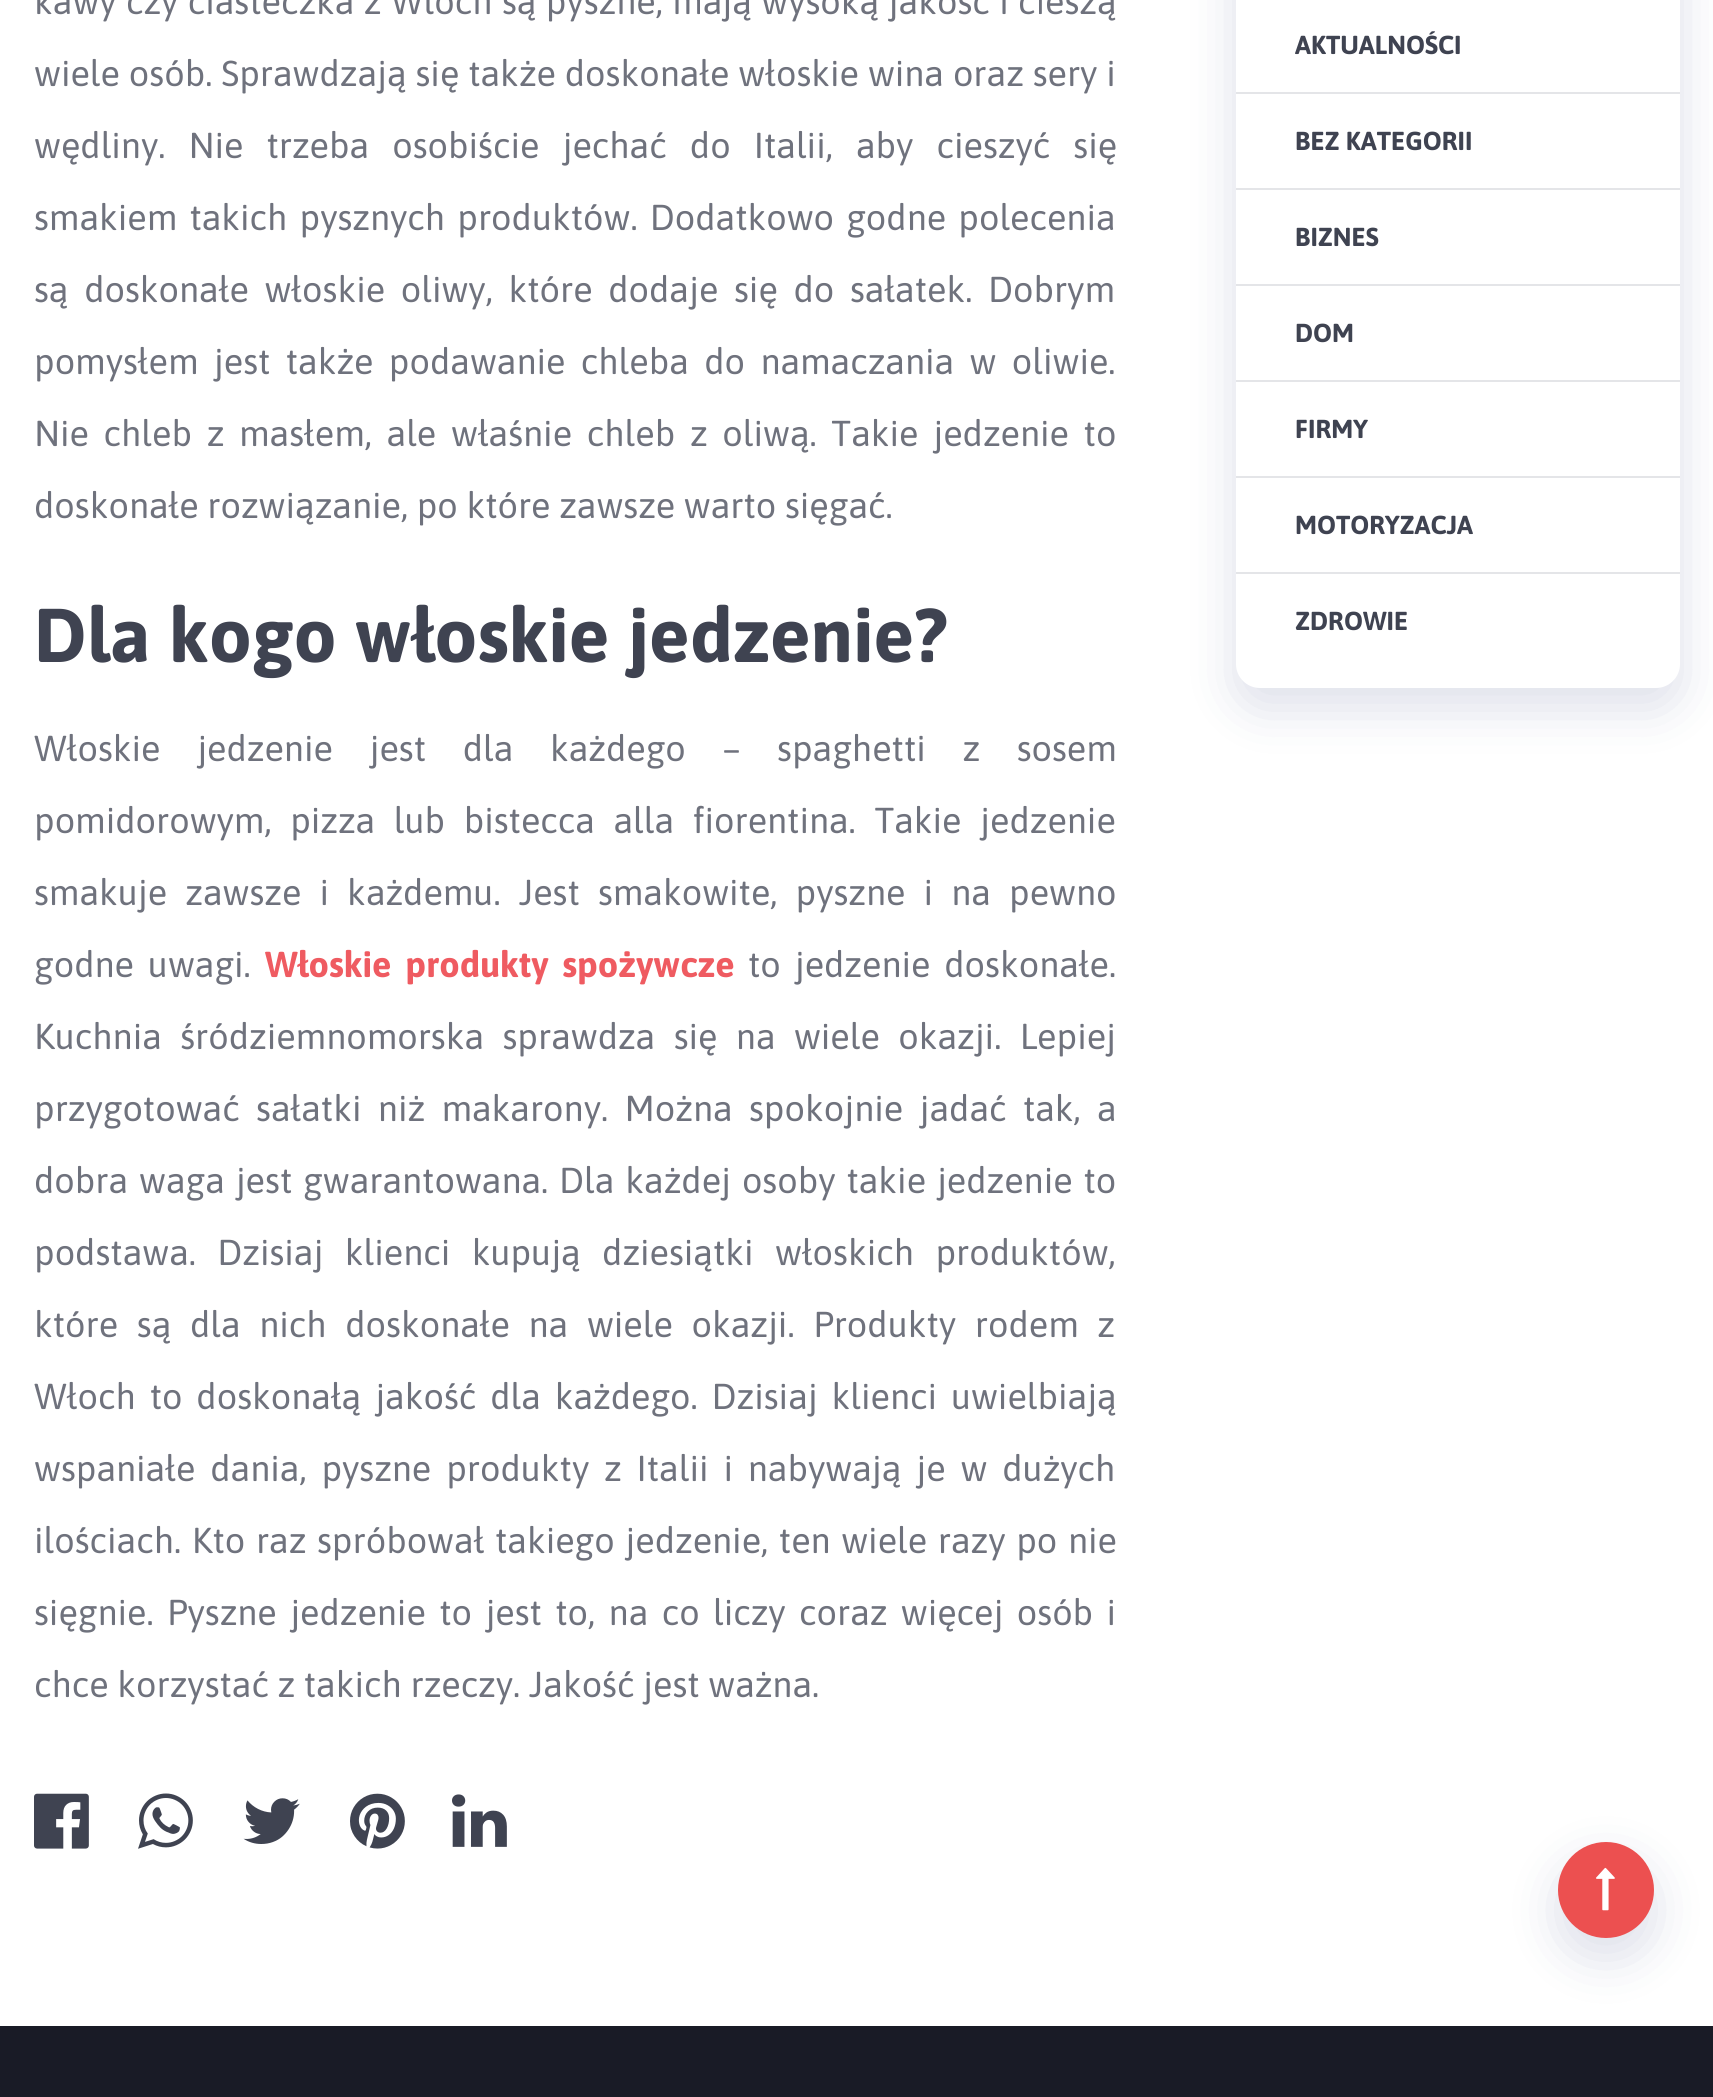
import math
import cairo

surface = cairo.ImageSurface(cairo.FORMAT_RGB24, 1713, 2097)
ctx = cairo.Context(surface)
options = cairo.FontOptions()
options.set_hint_metrics(cairo.HINT_METRICS_OFF)
options.set_hint_style(cairo.HINT_STYLE_NONE)
ctx.set_font_options(options)
ctx.set_miter_limit(4)


def spaced_text(x, y, s, letter, word):
    ctx.move_to(x, y)
    for ch in s:
        ctx.show_text(ch)
        ctx.rel_move_to(letter + word * (ch == ' '), 0)


def round_rect(x, y, w, h, r):
    ctx.new_sub_path()
    for i, (u, v) in enumerate([(x + w - r, y + h - r), (x + r, y + h - r), (x + r, y + r), (x + w - r, y + r)]):
        ctx.arc(u, v, r, i * math.pi / 2, (i + 1) * math.pi / 2)
    ctx.close_path()


def shadow(x, y, w, h, r, blur, alpha):
    ctx.push_group_with_content(cairo.CONTENT_ALPHA)
    ctx.set_operator(cairo.OPERATOR_SOURCE)
    for i in range(15, -16, -2):
        e = blur * i / 6
        if min(w, h) + 2 * e > 0:
            ctx.set_source_rgba(0, 0, 0, alpha * math.erfc((i - 1) / 8.5) / 2)
            round_rect(x - e, y - e, w + 2 * e, h + 2 * e, max(0, min(r + e + blur * .6, min(w, h) / 2 + e)))
            ctx.fill()
    ctx.mask(ctx.pop_group())


def picture(path, x, y, w, h):
    ctx.save()
    ctx.set_source_surface(cairo.ImageSurface.create_from_png(path), x, y)
    ctx.rectangle(x, y, w, h)
    ctx.fill()
    ctx.restore()


ctx.set_source_rgb(1, 1, 1)
ctx.paint()
ctx.select_font_face("Asap")
ctx.set_font_size(36)
ctx.set_source_rgb(0.435, 0.447, 0.49)
spaced_text(34, 14, "kawy czy ciasteczka z Wloch są pyszne, mają wysoką jakość i cieszą", 0, 0.75)
spaced_text(34, 86, "wiele osób. Sprawdzają się także doskonałe włoskie wina oraz sery i", 0, 0.25)
spaced_text(34, 158, "wędliny. Nie trzeba osobiście jechać do Italii, aby cieszyć się", 0, 14.5)
spaced_text(34, 230, "smakiem takich pysznych produktów. Dodatkowo godne polecenia", 0, 3.5)
spaced_text(34, 302, "są doskonałe włoskie oliwy, które dodaje się do sałatek. Dobrym", 0, 7)
spaced_text(34, 374, "pomysłem jest także podawanie chleba do namaczania w oliwie.", 0, 6.75)
spaced_text(34, 446, "Nie chleb z masłem, ale właśnie chleb z oliwą. Takie jedzenie to", 0, 6.1)
ctx.move_to(34, 518)
ctx.show_text("doskonałe rozwiązanie, po które zawsze warto sięgać.")
ctx.select_font_face("Asap", cairo.FONT_SLANT_NORMAL, cairo.FONT_WEIGHT_BOLD)
ctx.set_font_size(76)
ctx.set_source_rgb(0.247, 0.263, 0.318)
ctx.move_to(34, 662)
ctx.show_text("Dla kogo włoskie jedzenie?")
ctx.select_font_face("Asap")
ctx.set_font_size(36)
ctx.set_source_rgb(0.435, 0.447, 0.49)
spaced_text(34, 761, "Włoskie jedzenie jest dla każdego – spaghetti z sosem", 0, 28)
spaced_text(34, 833, "pomidorowym, pizza lub bistecca alla fiorentina. Takie jedzenie", 0, 10)
spaced_text(34, 905, "smakuje zawsze i każdemu. Jest smakowite, pyszne i na pewno", 0, 9.5)
spaced_text(34, 977, "godne uwagi.", 0, 5.25)
ctx.select_font_face("Asap", cairo.FONT_SLANT_NORMAL, cairo.FONT_WEIGHT_BOLD)
ctx.set_source_rgb(0.937, 0.357, 0.38)
spaced_text(265, 977, "Włoskie produkty spożywcze", 0, 5.25)
ctx.select_font_face("Asap")
ctx.set_source_rgb(0.435, 0.447, 0.49)
spaced_text(748, 977, "to jedzenie doskonałe.", 0, 5.25)
spaced_text(34, 1049, "Kuchnia śródziemnomorska sprawdza się na wiele okazji. Lepiej", 0, 9.75)
spaced_text(34, 1121, "przygotować sałatki niż makarony. Można spokojnie jadać tak, a", 0, 7.75)
spaced_text(34, 1193, "dobra waga jest gwarantowana. Dla każdej osoby takie jedzenie to", 0, 2.25)
spaced_text(34, 1265, "podstawa. Dzisiaj klienci kupują dziesiątki włoskich produktów,", 0, 12.75)
spaced_text(34, 1337, "które są dla nich doskonałe na wiele okazji. Produkty rodem z", 0, 10)
spaced_text(34, 1409, "Włoch to doskonałą jakość dla każdego. Dzisiaj klienci uwielbiają", 0, 5.25)
spaced_text(34, 1481, "wspaniałe dania, pyszne produkty z Italii i nabywają je w dużych", 0, 6.25)
spaced_text(34, 1553, "ilościach. Kto raz spróbował takiego jedzenie, ten wiele razy po nie", 0, 2)
spaced_text(34, 1625, "sięgnie. Pyszne jedzenie to jest to, na co liczy coraz więcej osób i", 0, 4.75)
ctx.move_to(34, 1697)
ctx.show_text("chce korzystać z takich rzeczy. Jakość jest ważna.")
picture("img1.png", 34, 1793, 55, 56)
picture("img2.png", 138, 1793, 55, 56)
picture("img3.png", 243, 1798, 57, 46)
picture("img4.png", 350, 1793, 55, 56)
picture("img5.png", 452, 1794, 55, 53)
ctx.set_source_rgb(0.106, 0.173, 0.443)
shadow(1236, -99, 444, 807, 24, 25, 0.15)
ctx.set_source_rgb(1, 1, 1)
round_rect(1236, -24, 444, 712, 24)
ctx.fill()
ctx.set_source_rgb(0.894, 0.898, 0.91)
ctx.rectangle(1236, 92, 444, 2)
ctx.fill()
ctx.select_font_face("Asap", cairo.FONT_SLANT_NORMAL, cairo.FONT_WEIGHT_BOLD)
ctx.set_font_size(26)
ctx.set_source_rgb(0.247, 0.263, 0.318)
ctx.move_to(1295, 54)
ctx.show_text("AKTUALNOŚCI")
ctx.set_source_rgb(0.894, 0.898, 0.91)
ctx.rectangle(1236, 188, 444, 2)
ctx.fill()
ctx.set_source_rgb(0.247, 0.263, 0.318)
ctx.move_to(1295, 150)
ctx.show_text("BEZ KATEGORII")
ctx.set_source_rgb(0.894, 0.898, 0.91)
ctx.rectangle(1236, 284, 444, 2)
ctx.fill()
ctx.set_source_rgb(0.247, 0.263, 0.318)
ctx.move_to(1295, 246)
ctx.show_text("BIZNES")
ctx.set_source_rgb(0.894, 0.898, 0.91)
ctx.rectangle(1236, 380, 444, 2)
ctx.fill()
ctx.set_source_rgb(0.247, 0.263, 0.318)
ctx.move_to(1295, 342)
ctx.show_text("DOM")
ctx.set_source_rgb(0.894, 0.898, 0.91)
ctx.rectangle(1236, 476, 444, 2)
ctx.fill()
ctx.set_source_rgb(0.247, 0.263, 0.318)
ctx.move_to(1295, 438)
ctx.show_text("FIRMY")
ctx.set_source_rgb(0.894, 0.898, 0.91)
ctx.rectangle(1236, 572, 444, 2)
ctx.fill()
ctx.set_source_rgb(0.247, 0.263, 0.318)
ctx.move_to(1295, 534)
ctx.show_text("MOTORYZACJA")
ctx.move_to(1295, 630)
ctx.show_text("ZDROWIE")
ctx.set_source_rgb(0.098, 0.106, 0.149)
ctx.rectangle(0, 2026, 1713, 71)
ctx.fill()
ctx.set_source_rgb(0.106, 0.173, 0.443)
shadow(1558, 1862, 96, 96, 48, 25, 0.15)
ctx.set_source_rgb(0.925, 0.314, 0.314)
ctx.arc(1606, 1890, 48, 0, 2 * math.pi)
ctx.fill()
picture("img6.png", 1596, 1867, 19, 44)
surface.write_to_png("page.png")
